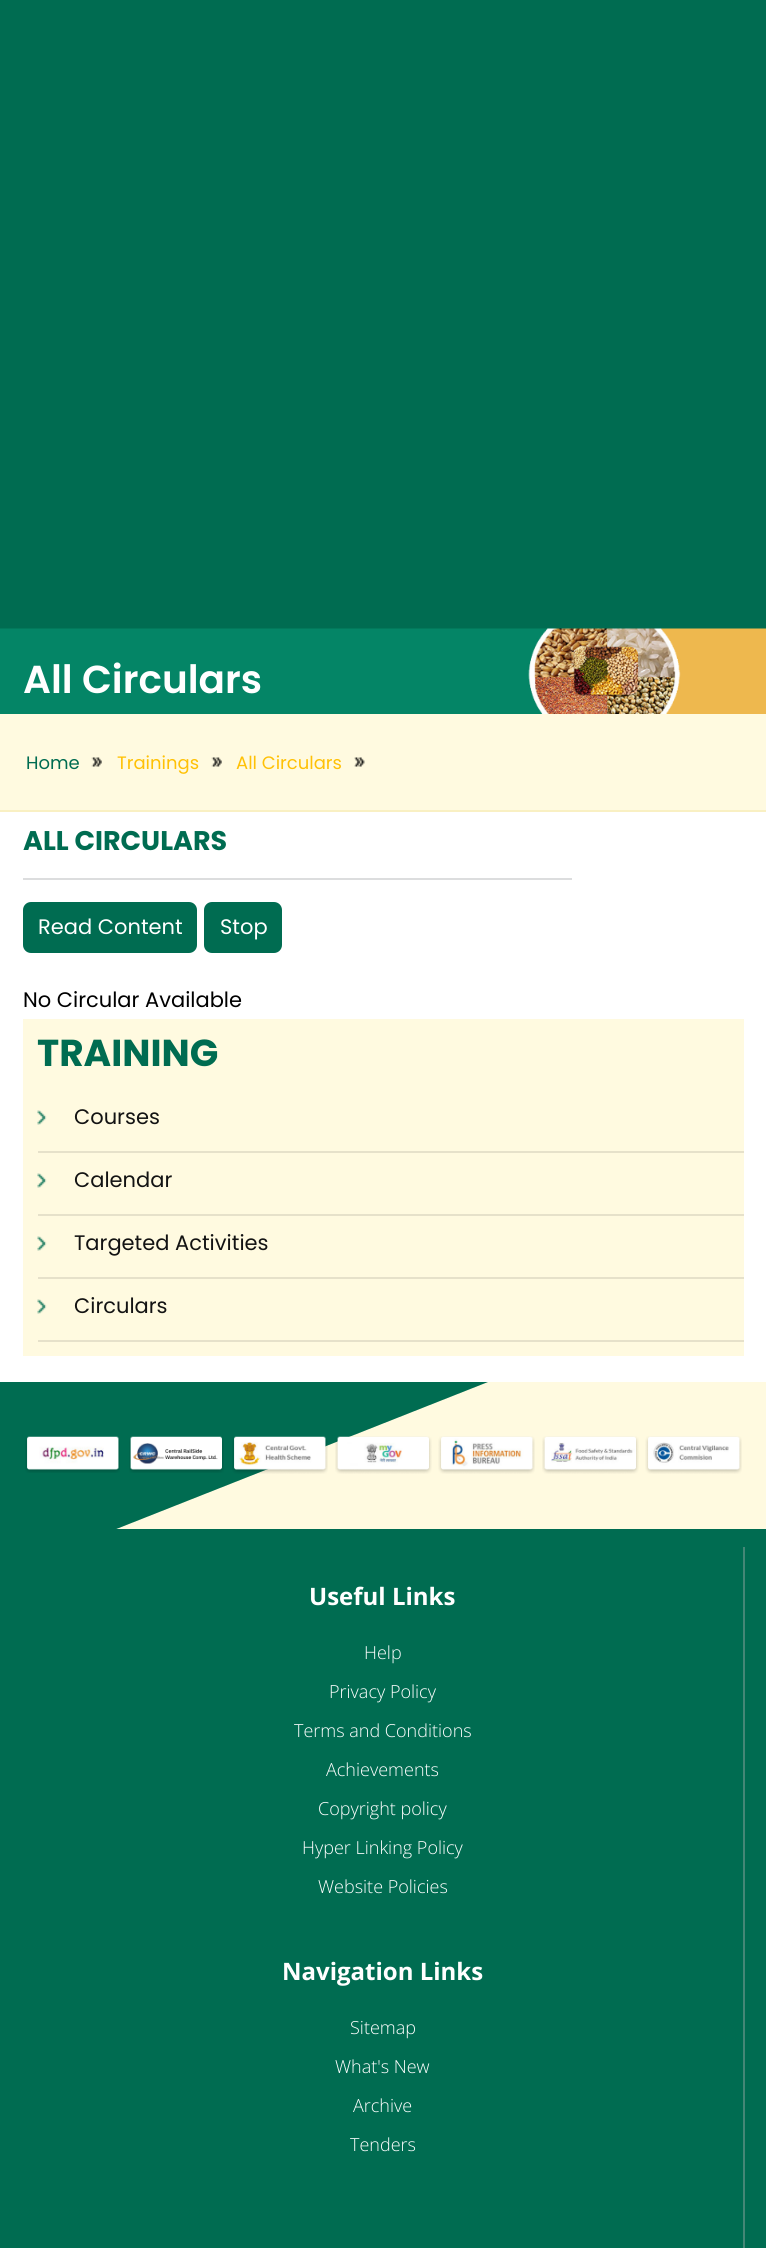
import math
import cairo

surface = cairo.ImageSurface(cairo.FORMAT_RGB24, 766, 2248)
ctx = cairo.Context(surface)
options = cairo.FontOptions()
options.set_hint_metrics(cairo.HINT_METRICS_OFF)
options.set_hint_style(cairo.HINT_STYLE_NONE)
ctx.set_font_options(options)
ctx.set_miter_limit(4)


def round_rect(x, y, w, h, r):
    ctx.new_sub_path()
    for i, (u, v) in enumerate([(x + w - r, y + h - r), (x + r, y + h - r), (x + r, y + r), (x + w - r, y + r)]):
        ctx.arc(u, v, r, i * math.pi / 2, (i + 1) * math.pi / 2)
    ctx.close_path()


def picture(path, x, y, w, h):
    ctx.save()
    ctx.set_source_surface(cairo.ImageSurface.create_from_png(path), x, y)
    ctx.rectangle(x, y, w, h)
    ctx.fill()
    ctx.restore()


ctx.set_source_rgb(1, 1, 1)
ctx.paint()
ctx.set_source_rgb(0, 0.424, 0.318)
ctx.rectangle(0, 0, 766, 629)
ctx.fill()
picture("img1.png", 0, 628, 766, 86)
ctx.select_font_face("Poppins SemiBold")
ctx.set_font_size(39)
ctx.set_source_rgb(1, 1, 1)
ctx.move_to(23, 693)
ctx.show_text("All Circulars")
ctx.set_source_rgb(1, 0.98, 0.878)
ctx.rectangle(0, 714, 766, 96)
ctx.fill()
ctx.set_source_rgb(0.976, 0.941, 0.765)
ctx.rectangle(0, 810, 766, 2)
ctx.fill()
picture("img2.png", 91, 757, 11, 10)
ctx.select_font_face("Poppins")
ctx.set_font_size(18)
ctx.set_source_rgb(0, 0.424, 0.318)
ctx.move_to(26, 769)
ctx.show_text("Home")
picture("img2.png", 211, 757, 11, 10)
ctx.set_source_rgb(1, 0.757, 0.027)
ctx.move_to(117, 769)
ctx.show_text("Trainings")
picture("img3.png", 354, 757, 11, 10)
ctx.move_to(236, 769)
ctx.show_text("All Circulars")
ctx.set_source_rgb(0.863, 0.867, 0.871)
ctx.rectangle(23, 878, 549, 2)
ctx.fill()
ctx.select_font_face("Poppins", cairo.FONT_SLANT_NORMAL, cairo.FONT_WEIGHT_BOLD)
ctx.set_font_size(27)
ctx.set_source_rgb(0, 0.424, 0.318)
ctx.move_to(23, 850)
ctx.show_text("ALL CIRCULARS")
round_rect(23, 902, 174, 51, 8)
ctx.fill()
ctx.select_font_face("Poppins")
ctx.set_font_size(21)
ctx.set_source_rgb(1, 1, 1)
ctx.move_to(38, 934)
ctx.show_text("Read Content")
ctx.set_source_rgb(0, 0.424, 0.318)
round_rect(204, 902, 78, 51, 8)
ctx.fill()
ctx.set_source_rgb(1, 1, 1)
ctx.move_to(220, 934)
ctx.show_text("Stop")
ctx.set_source_rgb(0, 0, 0)
ctx.move_to(23, 1007)
ctx.show_text("No Circular Available")
ctx.set_source_rgb(1, 0.98, 0.878)
ctx.rectangle(23, 1019, 721, 337)
ctx.fill()
ctx.select_font_face("Poppins", cairo.FONT_SLANT_NORMAL, cairo.FONT_WEIGHT_BOLD)
ctx.set_font_size(37.5)
ctx.set_source_rgb(0, 0.424, 0.318)
ctx.move_to(37, 1066)
ctx.show_text("TRAINING")
picture("img4.png", 37, 1110, 10, 15)
ctx.set_source_rgb(0.902, 0.882, 0.792)
ctx.rectangle(38, 1151, 706, 2)
ctx.fill()
ctx.select_font_face("Poppins")
ctx.set_font_size(21)
ctx.set_source_rgb(0.078, 0.078, 0.078)
ctx.move_to(74, 1124)
ctx.show_text("Courses")
picture("img4.png", 37, 1173, 10, 15)
ctx.set_source_rgb(0.902, 0.882, 0.792)
ctx.rectangle(38, 1214, 706, 2)
ctx.fill()
ctx.set_source_rgb(0.078, 0.078, 0.078)
ctx.move_to(74, 1187)
ctx.show_text("Calendar")
picture("img4.png", 37, 1236, 10, 15)
ctx.set_source_rgb(0.902, 0.882, 0.792)
ctx.rectangle(38, 1277, 706, 2)
ctx.fill()
ctx.set_source_rgb(0.078, 0.078, 0.078)
ctx.move_to(74, 1250)
ctx.show_text("Targeted Activities")
picture("img4.png", 37, 1299, 10, 15)
ctx.set_source_rgb(0.902, 0.882, 0.792)
ctx.rectangle(38, 1340, 706, 2)
ctx.fill()
ctx.set_source_rgb(0.078, 0.078, 0.078)
ctx.move_to(74, 1313)
ctx.show_text("Circulars")
ctx.set_source_rgb(1, 0.98, 0.878)
ctx.rectangle(116, 1382, 650, 147)
ctx.fill()
ctx.save()
ctx.rectangle(0, 1382, 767, 147)
ctx.clip()
ctx.set_source_rgb(0, 0.424, 0.318)
ctx.new_path()
ctx.move_to(0, 1382)
ctx.line_to(0, 1575)
ctx.line_to(488, 1382)
ctx.close_path()
ctx.fill()
ctx.restore()
picture("img5.png", 25, 1436, 95, 37)
picture("img6.png", 129, 1436, 95, 37)
picture("img7.png", 232, 1436, 96, 38)
picture("img8.png", 335, 1436, 97, 38)
picture("img9.png", 438, 1436, 97, 38)
picture("img10.png", 542, 1436, 97, 38)
picture("img11.png", 645, 1436, 97, 38)
ctx.set_source_rgb(0, 0.424, 0.318)
ctx.rectangle(0, 1529, 766, 719)
ctx.fill()
ctx.set_source_rgb(0.267, 0.529, 0.463)
ctx.rectangle(743, 1547, 2, 701)
ctx.fill()
ctx.select_font_face("Open Sans", cairo.FONT_SLANT_NORMAL, cairo.FONT_WEIGHT_BOLD)
ctx.set_font_size(24)
ctx.set_source_rgb(1, 1, 1)
ctx.move_to(309, 1605)
ctx.show_text("Useful Links")
ctx.select_font_face("Open Sans Light")
ctx.set_font_size(18)
ctx.move_to(364, 1659)
ctx.show_text("Help")
ctx.move_to(329, 1698)
ctx.show_text("Privacy Policy")
ctx.move_to(294, 1737)
ctx.show_text("Terms and Conditions")
ctx.move_to(326, 1776)
ctx.show_text("Achievements")
ctx.move_to(318, 1815)
ctx.show_text("Copyright policy")
ctx.move_to(302, 1854)
ctx.show_text("Hyper Linking Policy")
ctx.move_to(318, 1893)
ctx.show_text("Website Policies")
ctx.select_font_face("Open Sans", cairo.FONT_SLANT_NORMAL, cairo.FONT_WEIGHT_BOLD)
ctx.set_font_size(24)
ctx.move_to(282, 1980)
ctx.show_text("Navigation Links")
ctx.select_font_face("Open Sans Light")
ctx.set_font_size(18)
ctx.move_to(350, 2034)
ctx.show_text("Sitemap")
ctx.move_to(335, 2073)
ctx.show_text("What's New")
ctx.move_to(353, 2112)
ctx.show_text("Archive")
ctx.move_to(350, 2151)
ctx.show_text("Tenders")
surface.write_to_png("page.png")
